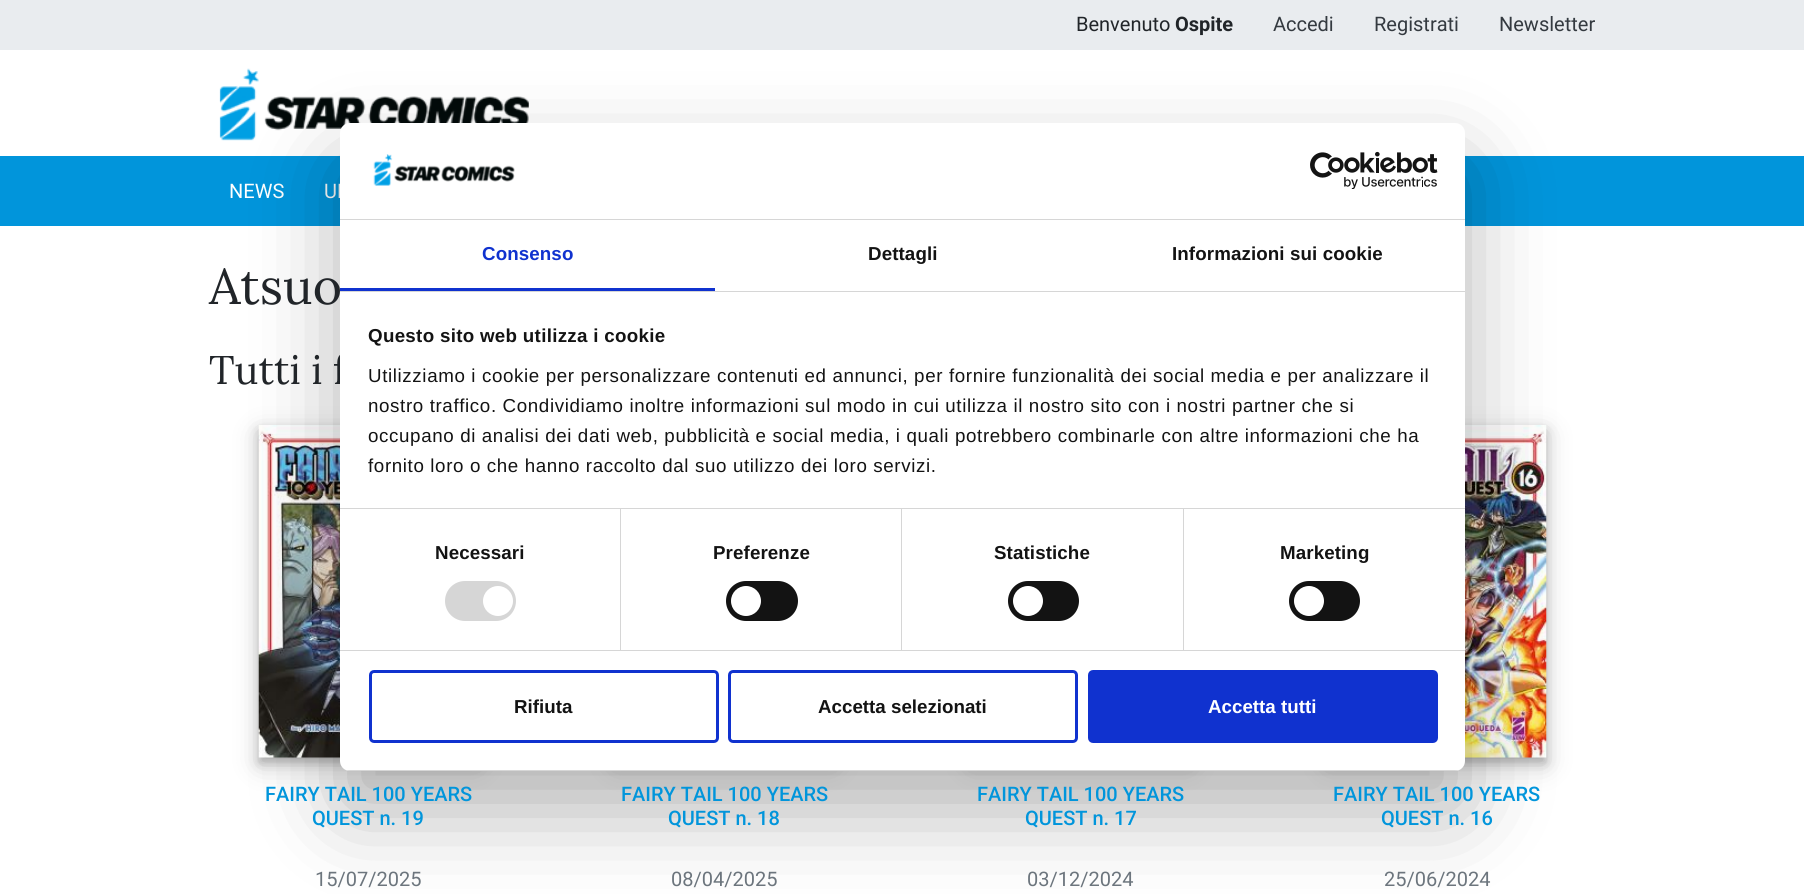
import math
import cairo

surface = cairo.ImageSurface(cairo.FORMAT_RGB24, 1804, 894)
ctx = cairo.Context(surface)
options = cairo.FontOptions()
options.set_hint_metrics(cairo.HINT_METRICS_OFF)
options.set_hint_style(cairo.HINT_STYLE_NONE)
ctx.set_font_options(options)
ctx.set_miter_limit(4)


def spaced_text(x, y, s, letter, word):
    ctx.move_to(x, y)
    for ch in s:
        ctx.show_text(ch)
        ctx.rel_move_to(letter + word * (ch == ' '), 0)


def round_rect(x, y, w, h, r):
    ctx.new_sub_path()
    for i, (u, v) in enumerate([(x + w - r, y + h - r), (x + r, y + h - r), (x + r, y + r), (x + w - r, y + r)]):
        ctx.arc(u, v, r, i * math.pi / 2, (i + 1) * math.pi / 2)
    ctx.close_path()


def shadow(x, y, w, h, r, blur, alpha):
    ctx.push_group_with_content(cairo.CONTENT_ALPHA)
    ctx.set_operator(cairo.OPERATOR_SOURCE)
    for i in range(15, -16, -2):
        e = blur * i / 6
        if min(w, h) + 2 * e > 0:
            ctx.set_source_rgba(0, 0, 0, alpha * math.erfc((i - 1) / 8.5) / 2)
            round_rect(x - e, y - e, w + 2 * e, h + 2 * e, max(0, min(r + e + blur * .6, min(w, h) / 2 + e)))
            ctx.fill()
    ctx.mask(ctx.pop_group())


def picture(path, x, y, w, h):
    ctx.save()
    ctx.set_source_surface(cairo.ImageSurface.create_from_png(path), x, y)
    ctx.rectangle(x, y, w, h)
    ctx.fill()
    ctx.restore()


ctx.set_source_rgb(1, 1, 1)
ctx.paint()
ctx.set_source_rgb(0.914, 0.925, 0.937)
ctx.rectangle(0, 0, 1804, 50)
ctx.fill()
ctx.select_font_face("Roboto")
ctx.set_font_size(20)
ctx.set_source_rgb(0.129, 0.145, 0.161)
ctx.move_to(1076, 31)
ctx.show_text("Benvenuto")
ctx.select_font_face("Roboto", cairo.FONT_SLANT_NORMAL, cairo.FONT_WEIGHT_BOLD)
ctx.move_to(1175, 31)
ctx.show_text("Ospite")
ctx.select_font_face("Roboto")
ctx.set_source_rgb(0.204, 0.227, 0.251)
ctx.move_to(1273, 31)
ctx.show_text("Accedi")
ctx.move_to(1374, 31)
ctx.show_text("Registrati")
ctx.move_to(1499, 31)
ctx.show_text("Newsletter")
picture("img1.png", 219, 68, 310, 73)
ctx.set_source_rgb(0.004, 0.584, 0.859)
ctx.rectangle(0, 156, 1804, 70)
ctx.fill()
ctx.set_source_rgb(1, 1, 1)
ctx.move_to(229, 198)
ctx.show_text("NEWS")
ctx.move_to(324, 198)
ctx.show_text("UL")
ctx.set_source_rgb(0, 0, 0)
shadow(259, 433, 219, 332, 0, 12.5, 0.2)
shadow(259, 430, 219, 333, 0, 5, 0.2)
picture("img4.png", 258, 425, 82, 333)
shadow(1328, 433, 218, 332, 0, 12.5, 0.2)
shadow(1328, 430, 218, 333, 0, 5, 0.2)
picture("img5.png", 1465, 425, 82, 333)
shadow(340, 163, 1125, 648, 10, 42.5, 0.3)
ctx.select_font_face("Lora")
ctx.set_font_size(40)
ctx.set_source_rgb(0.129, 0.145, 0.161)
ctx.move_to(209, 384)
ctx.show_text("Tutti i f")
ctx.set_source_rgb(0, 0, 0)
shadow(615, 433, 219, 332, 0, 12.5, 0.2)
shadow(971, 433, 219, 332, 0, 12.5, 0.2)
ctx.set_source_rgb(1, 1, 1)
round_rect(340, 123, 1125, 648, 10)
ctx.fill()
ctx.set_source_rgb(0.839, 0.839, 0.839)
ctx.rectangle(340, 219, 1125, 1)
ctx.fill()
picture("img2.png", 373, 154, 142, 32)
picture("img3.png", 1310, 151, 128, 38)
ctx.rectangle(340, 291, 1125, 1)
ctx.fill()
ctx.set_source_rgb(0.063, 0.196, 0.812)
ctx.rectangle(340, 288, 375, 3)
ctx.fill()
ctx.select_font_face("Liberation Sans", cairo.FONT_SLANT_NORMAL, cairo.FONT_WEIGHT_BOLD)
ctx.set_font_size(18.75)
spaced_text(482, 260, "Consenso", 0.1, 0)
ctx.set_source_rgb(0.078, 0.078, 0.078)
spaced_text(868, 260, "Dettagli", 0.1, 0)
spaced_text(1172, 260, "Informazioni sui cookie", 0.1, 0)
ctx.set_source_rgb(0.839, 0.839, 0.839)
ctx.rectangle(340, 508, 1125, 1)
ctx.fill()
ctx.set_source_rgb(0.078, 0.078, 0.078)
spaced_text(368, 342, "Questo sito web utilizza i cookie", 0.3, 0)
ctx.select_font_face("Liberation Sans")
spaced_text(368, 382, "Utilizziamo i cookie per personalizzare contenuti ed annunci, per fornire funzionalità dei social media e per analizzare il", 0.62, 0)
spaced_text(368, 412, "nostro traffico. Condividiamo inoltre informazioni sul modo in cui utilizza il nostro sito con i nostri partner che si", 0.62, 0)
spaced_text(368, 442, "occupano di analisi dei dati web, pubblicità e social media, i quali potrebbero combinarle con altre informazioni che ha", 0.62, 0)
spaced_text(368, 472, "fornito loro o che hanno raccolto dal suo utilizzo dei loro servizi.", 0.62, 0)
ctx.set_source_rgb(0.839, 0.839, 0.839)
ctx.rectangle(340, 650, 1125, 1)
ctx.fill()
ctx.rectangle(620, 509, 1, 141)
ctx.fill()
ctx.select_font_face("Liberation Sans", cairo.FONT_SLANT_NORMAL, cairo.FONT_WEIGHT_BOLD)
ctx.set_source_rgb(0.078, 0.078, 0.078)
spaced_text(435, 559, "Necessari", 0.1, 0)
ctx.set_source_rgb(0.839, 0.839, 0.839)
round_rect(445, 581, 71, 40, 20)
ctx.fill()
ctx.set_source_rgb(1, 1, 1)
ctx.arc(498, 601, 15, 0, 2 * math.pi)
ctx.fill()
ctx.set_source_rgb(0.839, 0.839, 0.839)
ctx.rectangle(901, 509, 1, 141)
ctx.fill()
ctx.set_source_rgb(0.078, 0.078, 0.078)
spaced_text(713, 559, "Preferenze", 0.1, 0)
round_rect(726, 581, 72, 40, 20)
ctx.fill()
ctx.set_source_rgb(1, 1, 1)
ctx.arc(746, 601, 15, 0, 2 * math.pi)
ctx.fill()
ctx.set_source_rgb(0.839, 0.839, 0.839)
ctx.rectangle(1183, 509, 1, 141)
ctx.fill()
ctx.set_source_rgb(0.078, 0.078, 0.078)
spaced_text(994, 559, "Statistiche", 0.1, 0)
round_rect(1008, 581, 71, 40, 20)
ctx.fill()
ctx.set_source_rgb(1, 1, 1)
ctx.arc(1028, 601, 15, 0, 2 * math.pi)
ctx.fill()
ctx.set_source_rgb(0.078, 0.078, 0.078)
spaced_text(1280, 559, "Marketing", 0.1, 0)
round_rect(1289, 581, 71, 40, 20)
ctx.fill()
ctx.set_source_rgb(1, 1, 1)
ctx.arc(1309, 601, 15, 0, 2 * math.pi)
ctx.fill()
ctx.save()
round_rect(340, 123, 1125, 648, 10)
ctx.clip()
ctx.set_source_rgb(0.839, 0.839, 0.839)
ctx.rectangle(340, 770, 1125, 1)
ctx.fill()
ctx.restore()
round_rect(370.5, 671.5, 347, 70, 3.5)
ctx.set_source_rgb(0.063, 0.196, 0.812)
ctx.set_line_width(3)
ctx.stroke()
ctx.set_source_rgb(0.078, 0.078, 0.078)
ctx.move_to(514, 713)
ctx.show_text("Rifiuta")
round_rect(729.5, 671.5, 347, 70, 3.5)
ctx.set_source_rgb(0.063, 0.196, 0.812)
ctx.stroke()
ctx.set_source_rgb(0.078, 0.078, 0.078)
ctx.move_to(818, 713)
ctx.show_text("Accetta selezionati")
ctx.set_source_rgb(0.063, 0.196, 0.812)
round_rect(1089.5, 671.5, 347, 70, 3.5)
ctx.fill_preserve()
ctx.stroke()
ctx.set_source_rgb(1, 1, 1)
ctx.move_to(1208, 713)
ctx.show_text("Accetta tutti")
ctx.select_font_face("Lora")
ctx.set_font_size(50)
ctx.set_source_rgb(0.129, 0.145, 0.161)
ctx.move_to(209, 304)
ctx.show_text("Atsuo")
ctx.select_font_face("Roboto Medium")
ctx.set_font_size(20)
ctx.set_source_rgb(0.004, 0.584, 0.859)
ctx.move_to(265, 801)
ctx.show_text("FAIRY TAIL 100 YEARS")
ctx.move_to(312, 825)
ctx.show_text("QUEST n. 19")
ctx.select_font_face("Roboto")
ctx.set_source_rgb(0.424, 0.459, 0.49)
ctx.move_to(315, 886)
ctx.show_text("15/07/2025")
ctx.select_font_face("Roboto Medium")
ctx.set_source_rgb(0.004, 0.584, 0.859)
ctx.move_to(621, 801)
ctx.show_text("FAIRY TAIL 100 YEARS")
ctx.move_to(668, 825)
ctx.show_text("QUEST n. 18")
ctx.select_font_face("Roboto")
ctx.set_source_rgb(0.424, 0.459, 0.49)
ctx.move_to(671, 886)
ctx.show_text("08/04/2025")
ctx.select_font_face("Roboto Medium")
ctx.set_source_rgb(0.004, 0.584, 0.859)
ctx.move_to(977, 801)
ctx.show_text("FAIRY TAIL 100 YEARS")
ctx.move_to(1025, 825)
ctx.show_text("QUEST n. 17")
ctx.select_font_face("Roboto")
ctx.set_source_rgb(0.424, 0.459, 0.49)
ctx.move_to(1027, 886)
ctx.show_text("03/12/2024")
ctx.select_font_face("Roboto Medium")
ctx.set_source_rgb(0.004, 0.584, 0.859)
ctx.move_to(1333, 801)
ctx.show_text("FAIRY TAIL 100 YEARS")
ctx.move_to(1381, 825)
ctx.show_text("QUEST n. 16")
ctx.select_font_face("Roboto")
ctx.set_source_rgb(0.424, 0.459, 0.49)
ctx.move_to(1384, 886)
ctx.show_text("25/06/2024")
surface.write_to_png("page.png")
